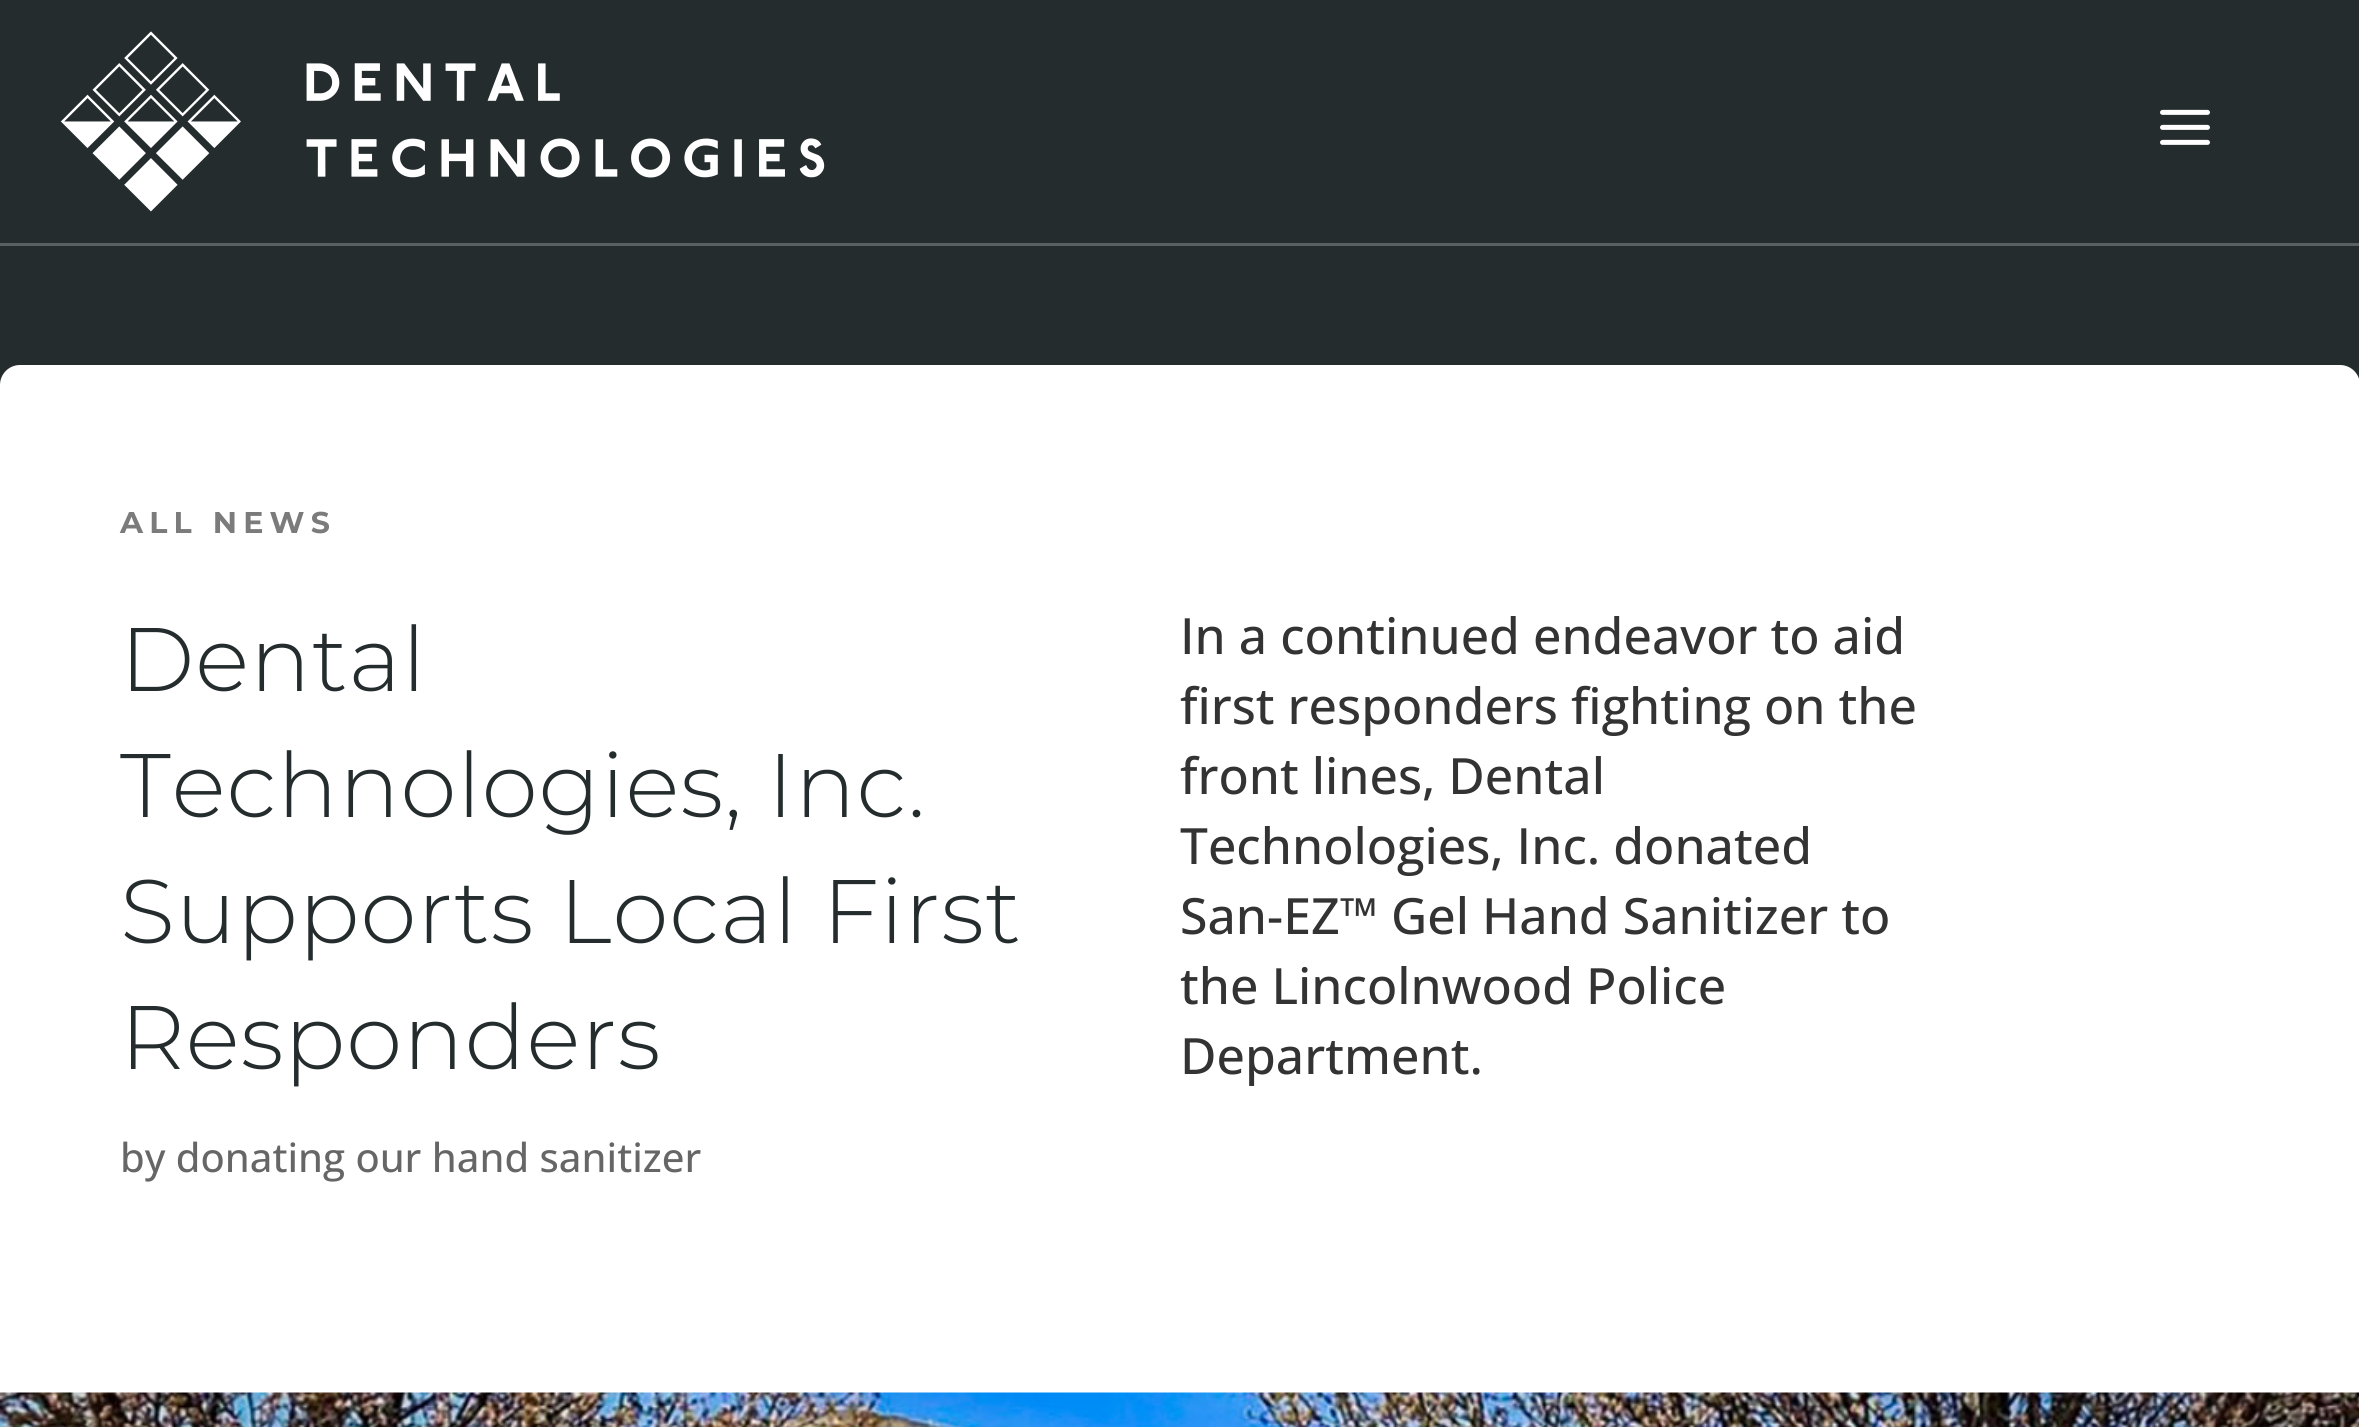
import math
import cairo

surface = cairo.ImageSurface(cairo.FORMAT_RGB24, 2359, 1427)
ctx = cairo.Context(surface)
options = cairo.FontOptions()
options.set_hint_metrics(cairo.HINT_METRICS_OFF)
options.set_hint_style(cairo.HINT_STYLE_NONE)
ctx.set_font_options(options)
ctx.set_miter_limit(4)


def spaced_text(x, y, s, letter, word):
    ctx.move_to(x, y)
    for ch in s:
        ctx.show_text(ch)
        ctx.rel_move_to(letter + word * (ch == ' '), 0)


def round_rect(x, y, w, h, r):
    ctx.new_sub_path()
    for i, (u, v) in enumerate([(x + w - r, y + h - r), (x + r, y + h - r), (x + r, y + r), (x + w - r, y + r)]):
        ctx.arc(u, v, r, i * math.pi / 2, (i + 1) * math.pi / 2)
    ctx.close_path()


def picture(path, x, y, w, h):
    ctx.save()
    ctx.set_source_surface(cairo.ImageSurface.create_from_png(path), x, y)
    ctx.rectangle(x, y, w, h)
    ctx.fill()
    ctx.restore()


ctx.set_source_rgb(0.141, 0.173, 0.18)
ctx.paint()
ctx.set_source_rgb(0.353, 0.373, 0.38)
ctx.rectangle(0, 243, 2359, 3)
ctx.fill()
picture("img1.png", 60, 31, 765, 181)
picture("img2.png", 2160, 109, 50, 36)
ctx.set_source_rgb(1, 1, 1)
round_rect(0, 365, 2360, 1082, 20)
ctx.fill()
ctx.select_font_face("Montserrat", cairo.FONT_SLANT_NORMAL, cairo.FONT_WEIGHT_BOLD)
ctx.set_font_size(30)
ctx.set_source_rgb(0.482, 0.482, 0.482)
spaced_text(120, 533, "ALL NEWS", 6.25, 0)
ctx.select_font_face("Montserrat Light")
ctx.set_font_size(90)
ctx.set_source_rgb(0.141, 0.173, 0.18)
spaced_text(120, 691, "Dental", 1, 0)
spaced_text(120, 817, "Technologies, Inc.", 1, 0)
spaced_text(120, 943, "Supports Local First", 1, 0)
spaced_text(120, 1069, "Responders", 1, 0)
ctx.select_font_face("Open Sans Medium")
ctx.set_font_size(40)
ctx.set_source_rgb(0.4, 0.4, 0.4)
ctx.move_to(120, 1172)
ctx.show_text("by donating our hand sanitizer")
ctx.set_font_size(50)
ctx.set_source_rgb(0.2, 0.2, 0.2)
ctx.move_to(1180, 654)
ctx.show_text("In a continued endeavor to aid")
ctx.move_to(1180, 724)
ctx.show_text("first responders fighting on the")
ctx.move_to(1180, 794)
ctx.show_text("front lines, Dental")
ctx.move_to(1180, 864)
ctx.show_text("Technologies, Inc. donated")
ctx.move_to(1180, 934)
ctx.show_text("San-EZ™ Gel Hand Sanitizer to")
ctx.move_to(1180, 1004)
ctx.show_text("the Lincolnwood Police")
ctx.move_to(1180, 1074)
ctx.show_text("Department.")
picture("img3.png", 0, 1392, 2359, 35)
surface.write_to_png("page.png")
